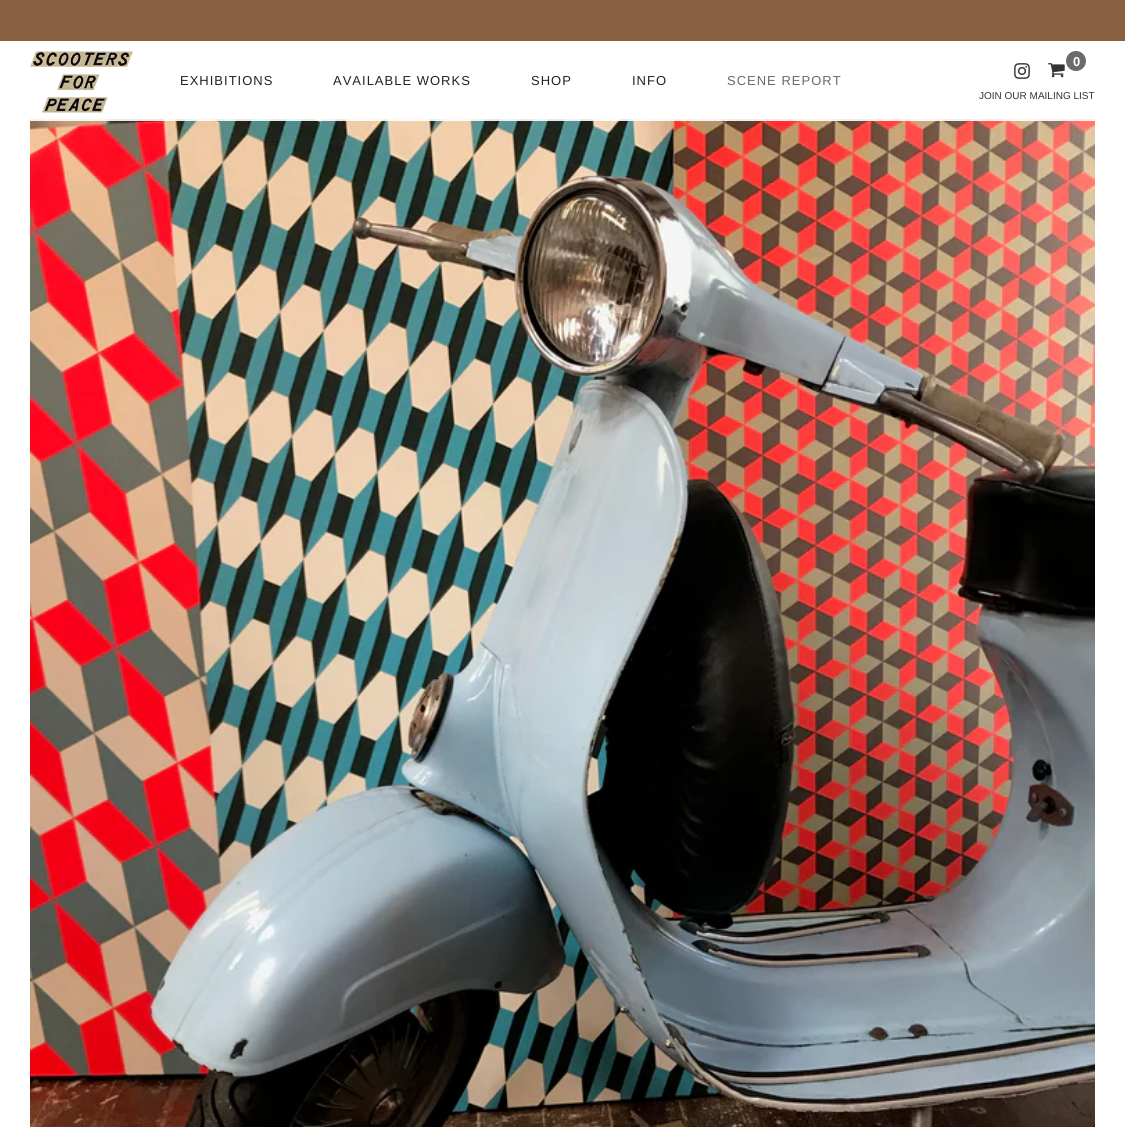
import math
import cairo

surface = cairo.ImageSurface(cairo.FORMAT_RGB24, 1125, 1127)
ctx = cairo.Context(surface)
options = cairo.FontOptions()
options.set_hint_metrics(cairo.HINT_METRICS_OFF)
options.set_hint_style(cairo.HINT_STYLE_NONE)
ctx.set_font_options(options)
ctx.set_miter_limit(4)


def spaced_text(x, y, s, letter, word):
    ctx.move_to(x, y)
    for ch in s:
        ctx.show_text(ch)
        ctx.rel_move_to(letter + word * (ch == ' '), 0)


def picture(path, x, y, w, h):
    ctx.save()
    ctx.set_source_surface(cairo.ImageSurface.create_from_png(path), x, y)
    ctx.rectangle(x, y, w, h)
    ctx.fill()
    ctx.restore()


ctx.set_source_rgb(1, 1, 1)
ctx.paint()
ctx.set_source_rgb(0.541, 0.376, 0.263)
ctx.rectangle(0, 0, 1125, 41)
ctx.fill()
picture("img4.png", 30, 119, 1065, 1008)
ctx.set_source_rgba(1, 1, 1, 0.9)
ctx.rectangle(30, 119, 1065, 2)
ctx.fill()
picture("img1.png", 30, 51, 103, 62)
ctx.select_font_face("Liberation Sans")
ctx.set_font_size(13)
ctx.set_source_rgb(0.133, 0.133, 0.133)
spaced_text(180, 85, "EXHIBITIONS", 1, 0)
spaced_text(333, 85, "AVAILABLE WORKS", 1, 0)
spaced_text(531, 85, "SHOP", 1, 0)
spaced_text(632, 85, "INFO", 1, 0)
ctx.set_source_rgb(0.416, 0.412, 0.424)
spaced_text(727, 85, "SCENE REPORT", 1, 0)
ctx.new_path()
ctx.arc(1076, 61, 10, 0, 2 * math.pi)
ctx.fill()
ctx.select_font_face("Liberation Sans", cairo.FONT_SLANT_NORMAL, cairo.FONT_WEIGHT_BOLD)
ctx.set_source_rgb(1, 1, 1)
ctx.move_to(1073, 66)
ctx.show_text("0")
picture("img2.png", 1048, 63, 17, 15)
picture("img3.png", 1014, 63, 16, 16)
ctx.select_font_face("Liberation Sans")
ctx.set_font_size(10)
ctx.set_source_rgb(0.2, 0.2, 0.2)
ctx.move_to(979, 99)
ctx.show_text("JOIN OUR MAILING LIST")
surface.write_to_png("page.png")
